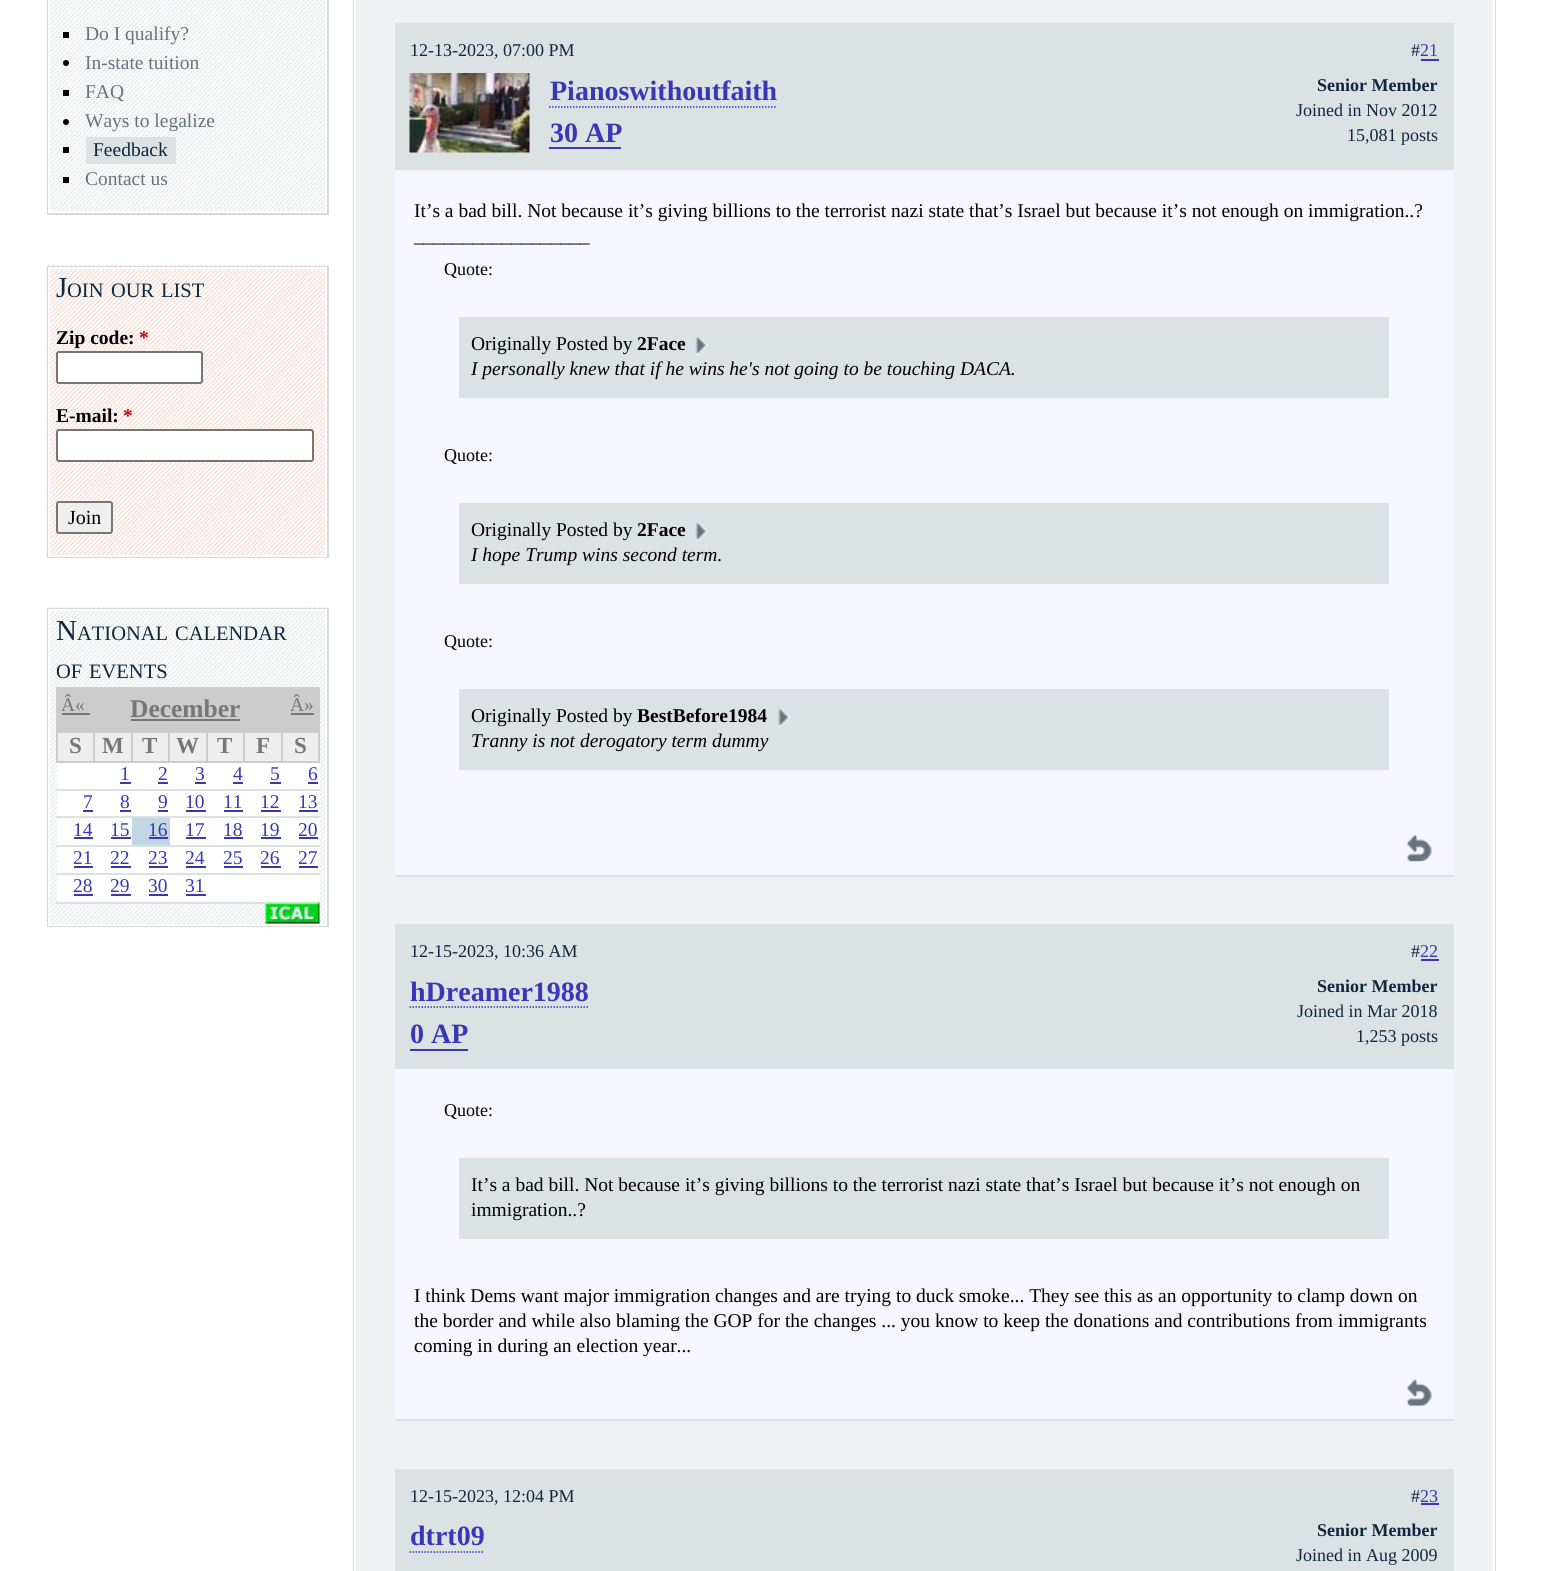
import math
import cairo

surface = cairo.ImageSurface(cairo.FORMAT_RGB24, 1544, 1571)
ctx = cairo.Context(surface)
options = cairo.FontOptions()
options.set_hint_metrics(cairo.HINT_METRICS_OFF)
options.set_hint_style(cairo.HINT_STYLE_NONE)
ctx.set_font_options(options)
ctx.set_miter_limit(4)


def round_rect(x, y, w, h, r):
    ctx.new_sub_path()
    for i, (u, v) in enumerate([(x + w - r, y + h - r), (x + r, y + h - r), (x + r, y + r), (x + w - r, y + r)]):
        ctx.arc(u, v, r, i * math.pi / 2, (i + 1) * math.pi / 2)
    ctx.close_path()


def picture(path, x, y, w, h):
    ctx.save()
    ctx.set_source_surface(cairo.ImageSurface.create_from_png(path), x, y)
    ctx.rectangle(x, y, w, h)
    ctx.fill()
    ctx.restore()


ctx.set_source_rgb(1, 1, 1)
ctx.paint()
picture("img1.png", 46, 0, 279, 214)
ctx.rectangle(48, -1, 280, 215)
ctx.set_source_rgb(0.843, 0.847, 0.851)
ctx.stroke()
ctx.rectangle(49, -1, 277, 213)
ctx.set_source_rgb(1, 1, 1)
ctx.stroke()
ctx.set_source_rgb(0, 0, 0)
ctx.rectangle(63, 32, 6, 6)
ctx.fill()
ctx.select_font_face("Liberation Serif")
ctx.set_font_size(19.5)
ctx.set_source_rgb(0.4, 0.455, 0.502)
ctx.move_to(85, 40)
ctx.show_text("Do I qualify?")
ctx.set_source_rgb(0, 0, 0)
ctx.new_path()
ctx.arc(66, 63, 3, 0, 2 * math.pi)
ctx.fill()
ctx.set_source_rgb(0.4, 0.455, 0.502)
ctx.move_to(85, 69)
ctx.show_text("In-state tuition")
ctx.set_source_rgb(0, 0, 0)
ctx.rectangle(63, 90, 6, 6)
ctx.fill()
ctx.set_source_rgb(0.4, 0.455, 0.502)
ctx.move_to(85, 98)
ctx.show_text("FAQ")
ctx.set_source_rgb(0, 0, 0)
ctx.new_path()
ctx.arc(66, 122, 3, 0, 2 * math.pi)
ctx.fill()
ctx.set_source_rgb(0.4, 0.455, 0.502)
ctx.move_to(85, 127)
ctx.show_text("Ways to legalize")
ctx.set_source_rgb(0, 0, 0)
ctx.rectangle(63, 147, 6, 6)
ctx.fill()
ctx.set_source_rgb(0.863, 0.882, 0.89)
ctx.rectangle(86, 137, 90, 27)
ctx.fill()
ctx.set_source_rgb(0.051, 0.157, 0.251)
ctx.move_to(93, 156)
ctx.show_text("Feedback")
ctx.set_source_rgb(0, 0, 0)
ctx.rectangle(63, 177, 6, 6)
ctx.fill()
ctx.set_source_rgb(0.4, 0.455, 0.502)
ctx.move_to(85, 185)
ctx.show_text("Contact us")
picture("img2.png", 46, 265, 283, 293)
ctx.rectangle(48, 267, 280, 290)
ctx.set_source_rgb(0.843, 0.847, 0.851)
ctx.stroke()
ctx.rectangle(49, 268, 277, 288)
ctx.set_source_rgb(1, 1, 1)
ctx.stroke()
ctx.set_font_size(29)
ctx.set_source_rgb(0.051, 0.157, 0.251)
ctx.move_to(56, 297)
ctx.show_text("J")
ctx.set_font_size(20.5)
ctx.move_to(67, 297)
ctx.show_text("OIN")
ctx.move_to(111, 297)
ctx.show_text("OUR")
ctx.move_to(161, 297)
ctx.show_text("LIST")
ctx.select_font_face("Liberation Serif", cairo.FONT_SLANT_NORMAL, cairo.FONT_WEIGHT_BOLD)
ctx.set_font_size(19.5)
ctx.set_source_rgb(0, 0, 0)
ctx.move_to(56, 344)
ctx.show_text("Zip code:")
ctx.set_source_rgb(0.8, 0, 0)
ctx.move_to(139, 344)
ctx.show_text("*")
ctx.set_source_rgb(1, 1, 1)
round_rect(57, 352, 145, 31, 2)
ctx.fill_preserve()
ctx.set_source_rgb(0.463, 0.463, 0.463)
ctx.stroke()
ctx.set_source_rgb(0, 0, 0)
ctx.move_to(56, 422)
ctx.show_text("E-mail:")
ctx.set_source_rgb(0.8, 0, 0)
ctx.move_to(123, 422)
ctx.show_text("*")
ctx.set_source_rgb(1, 1, 1)
round_rect(57, 430, 256, 31, 2)
ctx.fill_preserve()
ctx.set_source_rgb(0.463, 0.463, 0.463)
ctx.stroke()
ctx.set_source_rgb(0.937, 0.937, 0.937)
round_rect(57, 502, 55, 31, 2)
ctx.fill_preserve()
ctx.set_source_rgb(0.463, 0.463, 0.463)
ctx.stroke()
ctx.select_font_face("Liberation Serif")
ctx.set_font_size(20)
ctx.set_source_rgb(0, 0, 0)
ctx.move_to(68, 524)
ctx.show_text("Join")
picture("img3.png", 46, 607, 283, 320)
ctx.rectangle(48, 609, 280, 317)
ctx.set_source_rgb(0.843, 0.847, 0.851)
ctx.stroke()
ctx.rectangle(49, 610, 277, 315)
ctx.set_source_rgb(1, 1, 1)
ctx.stroke()
ctx.set_font_size(29)
ctx.set_source_rgb(0.051, 0.157, 0.251)
ctx.move_to(56, 640)
ctx.show_text("N")
ctx.set_font_size(20.5)
ctx.move_to(77, 640)
ctx.show_text("ATIONAL")
ctx.move_to(175, 640)
ctx.show_text("CALENDAR")
ctx.move_to(56, 678)
ctx.show_text("OF")
ctx.move_to(89, 678)
ctx.show_text("EVENTS")
ctx.set_source_rgb(0.8, 0.8, 0.8)
ctx.rectangle(56, 687, 264, 44)
ctx.fill()
ctx.set_font_size(19.5)
ctx.set_source_rgb(0.467, 0.467, 0.467)
ctx.move_to(61, 711)
ctx.show_text("Â«")
ctx.rectangle(62, 713, 28, 2)
ctx.fill()
ctx.select_font_face("Liberation Serif", cairo.FONT_SLANT_NORMAL, cairo.FONT_WEIGHT_BOLD)
ctx.set_font_size(25.5)
ctx.move_to(130, 717)
ctx.show_text("December")
ctx.rectangle(131, 719, 109, 2)
ctx.fill()
ctx.select_font_face("Liberation Serif")
ctx.set_font_size(19.5)
ctx.move_to(290, 711)
ctx.show_text("Â»")
ctx.rectangle(291, 713, 23, 2)
ctx.fill()
ctx.set_source_rgb(0.933, 0.933, 0.933)
ctx.rectangle(58, 733, 35, 28)
ctx.fill()
ctx.set_source_rgb(0.8, 0.8, 0.8)
ctx.rectangle(281, 731, 39, 2)
ctx.fill()
ctx.rectangle(318, 731, 2, 31)
ctx.fill()
ctx.rectangle(281, 761, 39, 2)
ctx.fill()
ctx.rectangle(281, 731, 2, 31)
ctx.fill()
ctx.rectangle(243, 731, 39, 2)
ctx.fill()
ctx.rectangle(243, 761, 39, 2)
ctx.fill()
ctx.rectangle(243, 731, 2, 31)
ctx.fill()
ctx.rectangle(206, 731, 39, 2)
ctx.fill()
ctx.rectangle(206, 761, 39, 2)
ctx.fill()
ctx.rectangle(206, 731, 2, 31)
ctx.fill()
ctx.rectangle(168, 731, 39, 2)
ctx.fill()
ctx.rectangle(168, 761, 39, 2)
ctx.fill()
ctx.rectangle(168, 731, 2, 31)
ctx.fill()
ctx.rectangle(131, 731, 39, 2)
ctx.fill()
ctx.rectangle(131, 761, 39, 2)
ctx.fill()
ctx.rectangle(131, 731, 2, 31)
ctx.fill()
ctx.rectangle(93, 731, 39, 2)
ctx.fill()
ctx.rectangle(93, 761, 39, 2)
ctx.fill()
ctx.rectangle(93, 731, 2, 31)
ctx.fill()
ctx.rectangle(56, 731, 39, 2)
ctx.fill()
ctx.rectangle(56, 761, 39, 2)
ctx.fill()
ctx.rectangle(56, 731, 2, 31)
ctx.fill()
ctx.select_font_face("Liberation Serif", cairo.FONT_SLANT_NORMAL, cairo.FONT_WEIGHT_BOLD)
ctx.set_font_size(23)
ctx.set_source_rgb(0.467, 0.467, 0.467)
ctx.move_to(69, 753)
ctx.show_text("S")
ctx.set_source_rgb(0.933, 0.933, 0.933)
ctx.rectangle(95, 733, 36, 28)
ctx.fill()
ctx.set_source_rgb(0.467, 0.467, 0.467)
ctx.move_to(102, 753)
ctx.show_text("M")
ctx.set_source_rgb(0.933, 0.933, 0.933)
ctx.rectangle(133, 733, 35, 28)
ctx.fill()
ctx.set_source_rgb(0.467, 0.467, 0.467)
ctx.move_to(142, 753)
ctx.show_text("T")
ctx.set_source_rgb(0.933, 0.933, 0.933)
ctx.rectangle(170, 733, 36, 28)
ctx.fill()
ctx.set_source_rgb(0.467, 0.467, 0.467)
ctx.move_to(176, 753)
ctx.show_text("W")
ctx.set_source_rgb(0.933, 0.933, 0.933)
ctx.rectangle(208, 733, 35, 28)
ctx.fill()
ctx.set_source_rgb(0.467, 0.467, 0.467)
ctx.move_to(217, 753)
ctx.show_text("T")
ctx.set_source_rgb(0.933, 0.933, 0.933)
ctx.rectangle(245, 733, 36, 28)
ctx.fill()
ctx.set_source_rgb(0.467, 0.467, 0.467)
ctx.move_to(256, 753)
ctx.show_text("F")
ctx.set_source_rgb(0.933, 0.933, 0.933)
ctx.rectangle(283, 733, 35, 28)
ctx.fill()
ctx.set_source_rgb(0.467, 0.467, 0.467)
ctx.move_to(294, 753)
ctx.show_text("S")
ctx.set_source_rgb(1, 1, 1)
ctx.rectangle(57, 763, 263, 26)
ctx.fill()
ctx.set_source_rgb(0.863, 0.882, 0.89)
ctx.rectangle(56, 789, 264, 2)
ctx.fill()
ctx.select_font_face("Liberation Serif")
ctx.set_font_size(19.5)
ctx.set_source_rgb(0.22, 0.22, 0.714)
ctx.move_to(120, 780)
ctx.show_text("1")
ctx.rectangle(120, 782, 11, 2)
ctx.fill()
ctx.move_to(158, 780)
ctx.show_text("2")
ctx.rectangle(158, 782, 10, 2)
ctx.fill()
ctx.move_to(195, 780)
ctx.show_text("3")
ctx.rectangle(195, 782, 11, 2)
ctx.fill()
ctx.move_to(233, 780)
ctx.show_text("4")
ctx.rectangle(233, 782, 10, 2)
ctx.fill()
ctx.move_to(270, 780)
ctx.show_text("5")
ctx.rectangle(270, 782, 11, 2)
ctx.fill()
ctx.move_to(308, 780)
ctx.show_text("6")
ctx.rectangle(308, 782, 10, 2)
ctx.fill()
ctx.set_source_rgb(1, 1, 1)
ctx.rectangle(57, 791, 263, 25)
ctx.fill()
ctx.set_source_rgb(0.863, 0.882, 0.89)
ctx.rectangle(56, 816, 264, 2)
ctx.fill()
ctx.set_source_rgb(0.22, 0.22, 0.714)
ctx.move_to(83, 808)
ctx.show_text("7")
ctx.rectangle(83, 810, 10, 2)
ctx.fill()
ctx.move_to(120, 808)
ctx.show_text("8")
ctx.rectangle(120, 810, 11, 2)
ctx.fill()
ctx.move_to(158, 808)
ctx.show_text("9")
ctx.rectangle(158, 810, 10, 2)
ctx.fill()
ctx.move_to(185, 808)
ctx.show_text("10")
ctx.rectangle(186, 810, 20, 2)
ctx.fill()
ctx.move_to(223, 808)
ctx.show_text("11")
ctx.rectangle(224, 810, 19, 2)
ctx.fill()
ctx.move_to(260, 808)
ctx.show_text("12")
ctx.rectangle(261, 810, 20, 2)
ctx.fill()
ctx.move_to(298, 808)
ctx.show_text("13")
ctx.rectangle(299, 810, 19, 2)
ctx.fill()
ctx.set_source_rgb(1, 1, 1)
ctx.rectangle(57, 818, 263, 27)
ctx.fill()
ctx.set_source_rgb(0.863, 0.882, 0.89)
ctx.rectangle(56, 845, 264, 2)
ctx.fill()
ctx.set_source_rgb(0.22, 0.22, 0.714)
ctx.move_to(73, 836)
ctx.show_text("14")
ctx.rectangle(74, 837, 19, 2)
ctx.fill()
ctx.move_to(110, 836)
ctx.show_text("15")
ctx.rectangle(111, 837, 20, 2)
ctx.fill()
ctx.set_source_rgb(0.765, 0.839, 0.894)
ctx.rectangle(132, 818, 38, 27)
ctx.fill()
ctx.set_source_rgb(0.22, 0.22, 0.714)
ctx.move_to(148, 836)
ctx.show_text("16")
ctx.rectangle(149, 837, 19, 2)
ctx.fill()
ctx.move_to(185, 836)
ctx.show_text("17")
ctx.rectangle(186, 837, 20, 2)
ctx.fill()
ctx.move_to(223, 836)
ctx.show_text("18")
ctx.rectangle(224, 837, 19, 2)
ctx.fill()
ctx.move_to(260, 836)
ctx.show_text("19")
ctx.rectangle(261, 837, 20, 2)
ctx.fill()
ctx.move_to(298, 836)
ctx.show_text("20")
ctx.rectangle(299, 837, 19, 2)
ctx.fill()
ctx.set_source_rgb(1, 1, 1)
ctx.rectangle(57, 847, 263, 26)
ctx.fill()
ctx.set_source_rgb(0.863, 0.882, 0.89)
ctx.rectangle(56, 873, 264, 2)
ctx.fill()
ctx.set_source_rgb(0.22, 0.22, 0.714)
ctx.move_to(73, 864)
ctx.show_text("21")
ctx.rectangle(74, 866, 19, 2)
ctx.fill()
ctx.move_to(110, 864)
ctx.show_text("22")
ctx.rectangle(111, 866, 20, 2)
ctx.fill()
ctx.move_to(148, 864)
ctx.show_text("23")
ctx.rectangle(149, 866, 19, 2)
ctx.fill()
ctx.move_to(185, 864)
ctx.show_text("24")
ctx.rectangle(186, 866, 20, 2)
ctx.fill()
ctx.move_to(223, 864)
ctx.show_text("25")
ctx.rectangle(224, 866, 19, 2)
ctx.fill()
ctx.move_to(260, 864)
ctx.show_text("26")
ctx.rectangle(261, 866, 20, 2)
ctx.fill()
ctx.move_to(298, 864)
ctx.show_text("27")
ctx.rectangle(299, 866, 19, 2)
ctx.fill()
ctx.set_source_rgb(1, 1, 1)
ctx.rectangle(57, 875, 263, 27)
ctx.fill()
ctx.set_source_rgb(0.863, 0.882, 0.89)
ctx.rectangle(56, 902, 264, 2)
ctx.fill()
ctx.set_source_rgb(0.22, 0.22, 0.714)
ctx.move_to(73, 892)
ctx.show_text("28")
ctx.rectangle(74, 894, 19, 2)
ctx.fill()
ctx.move_to(110, 892)
ctx.show_text("29")
ctx.rectangle(111, 894, 20, 2)
ctx.fill()
ctx.move_to(148, 892)
ctx.show_text("30")
ctx.rectangle(149, 894, 19, 2)
ctx.fill()
ctx.move_to(185, 892)
ctx.show_text("31")
ctx.rectangle(186, 894, 20, 2)
ctx.fill()
picture("img4.png", 265, 902, 55, 22)
ctx.set_source_rgb(0.941, 0.945, 0.949)
ctx.rectangle(356, 0, 1137, 1571)
ctx.fill()
ctx.rectangle(354, -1, 1141, 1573)
ctx.set_source_rgb(0.843, 0.847, 0.851)
ctx.stroke()
ctx.set_source_rgb(1, 1, 1)
ctx.rectangle(1494, 0, 1, 1571)
ctx.fill()
ctx.rectangle(354, 0, 1, 1571)
ctx.fill()
ctx.set_source_rgb(0.961, 0.961, 1)
ctx.rectangle(395, 170, 1059, 705)
ctx.fill()
ctx.set_source_rgb(0.863, 0.882, 0.89)
ctx.rectangle(395, 875, 1059, 2)
ctx.fill()
ctx.rectangle(395, 23, 1059, 147)
ctx.fill()
ctx.set_font_size(18)
ctx.set_source_rgb(0.051, 0.157, 0.251)
ctx.move_to(410, 56)
ctx.show_text("12-13-2023, 07:00 PM")
ctx.move_to(1411, 56)
ctx.show_text("#")
ctx.set_source_rgb(0.22, 0.22, 0.714)
ctx.move_to(1420, 56)
ctx.show_text("21")
ctx.rectangle(1421, 59, 18, 2)
ctx.fill()
picture("img5.png", 409, 73, 121, 80)
ctx.select_font_face("Liberation Serif", cairo.FONT_SLANT_NORMAL, cairo.FONT_WEIGHT_BOLD)
ctx.set_font_size(28)
ctx.move_to(550, 100)
ctx.show_text("Pianoswithoutfaith")
ctx.new_path()
ctx.move_to(549, 107)
ctx.line_to(775.5, 107)
ctx.set_line_width(1.5)
ctx.set_dash([1.5, 1.5])
ctx.stroke()
ctx.move_to(550, 142)
ctx.show_text("30 AP")
ctx.rectangle(549, 147, 72, 2)
ctx.fill()
ctx.set_font_size(18)
ctx.set_source_rgb(0.051, 0.157, 0.251)
ctx.move_to(1317, 91)
ctx.show_text("Senior Member")
ctx.select_font_face("Liberation Serif")
ctx.move_to(1296, 116)
ctx.show_text("Joined in Nov 2012")
ctx.move_to(1347, 141)
ctx.show_text("15,081 posts")
ctx.set_font_size(19.5)
ctx.set_source_rgb(0, 0, 0)
ctx.move_to(414, 217)
ctx.show_text("It’s a bad bill. Not because it’s giving billions to the terrorist nazi state that’s Israel but because it’s not enough on immigration..?")
ctx.move_to(414, 242)
ctx.show_text("__________________")
ctx.set_font_size(18)
ctx.move_to(444, 275)
ctx.show_text("Quote:")
ctx.set_source_rgb(0.863, 0.882, 0.89)
ctx.rectangle(459, 317, 930, 81)
ctx.fill()
ctx.set_font_size(19.5)
ctx.set_source_rgb(0, 0, 0)
ctx.move_to(471, 350)
ctx.show_text("Originally Posted by")
ctx.select_font_face("Liberation Serif", cairo.FONT_SLANT_NORMAL, cairo.FONT_WEIGHT_BOLD)
ctx.move_to(637, 350)
ctx.show_text("2Face")
picture("img6.png", 695, 336, 14, 19)
ctx.select_font_face("Liberation Serif", cairo.FONT_SLANT_ITALIC)
ctx.move_to(471, 375)
ctx.show_text("I personally knew that if he wins he's not going to be touching DACA.")
ctx.select_font_face("Liberation Serif")
ctx.set_font_size(18)
ctx.move_to(444, 461)
ctx.show_text("Quote:")
ctx.set_source_rgb(0.863, 0.882, 0.89)
ctx.rectangle(459, 503, 930, 81)
ctx.fill()
ctx.set_font_size(19.5)
ctx.set_source_rgb(0, 0, 0)
ctx.move_to(471, 536)
ctx.show_text("Originally Posted by")
ctx.select_font_face("Liberation Serif", cairo.FONT_SLANT_NORMAL, cairo.FONT_WEIGHT_BOLD)
ctx.move_to(637, 536)
ctx.show_text("2Face")
picture("img6.png", 695, 522, 14, 19)
ctx.select_font_face("Liberation Serif", cairo.FONT_SLANT_ITALIC)
ctx.move_to(471, 561)
ctx.show_text("I hope Trump wins second term.")
ctx.select_font_face("Liberation Serif")
ctx.set_font_size(18)
ctx.move_to(444, 647)
ctx.show_text("Quote:")
ctx.set_source_rgb(0.863, 0.882, 0.89)
ctx.rectangle(459, 689, 930, 81)
ctx.fill()
ctx.set_font_size(19.5)
ctx.set_source_rgb(0, 0, 0)
ctx.move_to(471, 722)
ctx.show_text("Originally Posted by")
ctx.select_font_face("Liberation Serif", cairo.FONT_SLANT_NORMAL, cairo.FONT_WEIGHT_BOLD)
ctx.move_to(637, 722)
ctx.show_text("BestBefore1984")
picture("img7.png", 778, 708, 13, 19)
ctx.select_font_face("Liberation Serif", cairo.FONT_SLANT_ITALIC)
ctx.move_to(471, 747)
ctx.show_text("Tranny is not derogatory term dummy")
picture("img8.png", 1407, 834, 25, 28)
ctx.set_source_rgb(0.961, 0.961, 1)
ctx.rectangle(395, 1069, 1059, 350)
ctx.fill()
ctx.set_source_rgb(0.863, 0.882, 0.89)
ctx.rectangle(395, 1419, 1059, 2)
ctx.fill()
ctx.rectangle(395, 924, 1059, 145)
ctx.fill()
ctx.select_font_face("Liberation Serif")
ctx.set_font_size(18)
ctx.set_source_rgb(0.051, 0.157, 0.251)
ctx.move_to(410, 957)
ctx.show_text("12-15-2023, 10:36 AM")
ctx.move_to(1411, 957)
ctx.show_text("#")
ctx.set_source_rgb(0.22, 0.22, 0.714)
ctx.move_to(1420, 957)
ctx.show_text("22")
ctx.rectangle(1421, 959, 18, 2)
ctx.fill()
ctx.select_font_face("Liberation Serif", cairo.FONT_SLANT_NORMAL, cairo.FONT_WEIGHT_BOLD)
ctx.set_font_size(28)
ctx.move_to(410, 1001)
ctx.show_text("hDreamer1988")
ctx.new_path()
ctx.move_to(409.5, 1007)
ctx.line_to(588, 1007)
ctx.stroke()
ctx.move_to(410, 1043)
ctx.show_text("0 AP")
ctx.rectangle(410, 1049, 58, 2)
ctx.fill()
ctx.set_font_size(18)
ctx.set_source_rgb(0.051, 0.157, 0.251)
ctx.move_to(1317, 992)
ctx.show_text("Senior Member")
ctx.select_font_face("Liberation Serif")
ctx.move_to(1297, 1017)
ctx.show_text("Joined in Mar 2018")
ctx.move_to(1356, 1042)
ctx.show_text("1,253 posts")
ctx.set_source_rgb(0, 0, 0)
ctx.move_to(444, 1116)
ctx.show_text("Quote:")
ctx.set_source_rgb(0.863, 0.882, 0.89)
ctx.rectangle(459, 1158, 930, 81)
ctx.fill()
ctx.set_font_size(19.5)
ctx.set_source_rgb(0, 0, 0)
ctx.move_to(471, 1191)
ctx.show_text("It’s a bad bill. Not because it’s giving billions to the terrorist nazi state that’s Israel but because it’s not enough on")
ctx.move_to(471, 1216)
ctx.show_text("immigration..?")
ctx.move_to(414, 1302)
ctx.show_text("I think Dems want major immigration changes and are trying to duck smoke... They see this as an opportunity to clamp down on")
ctx.move_to(414, 1327)
ctx.show_text("the border and while also blaming the GOP for the changes ... you know to keep the donations and contributions from immigrants")
ctx.move_to(414, 1352)
ctx.show_text("coming in during an election year...")
picture("img9.png", 1407, 1379, 25, 27)
ctx.set_source_rgb(0.863, 0.882, 0.89)
ctx.rectangle(395, 1469, 1059, 102)
ctx.fill()
ctx.set_font_size(18)
ctx.set_source_rgb(0.051, 0.157, 0.251)
ctx.move_to(410, 1502)
ctx.show_text("12-15-2023, 12:04 PM")
ctx.move_to(1411, 1502)
ctx.show_text("#")
ctx.set_source_rgb(0.22, 0.22, 0.714)
ctx.move_to(1420, 1502)
ctx.show_text("23")
ctx.rectangle(1421, 1503, 18, 2)
ctx.fill()
ctx.select_font_face("Liberation Serif", cairo.FONT_SLANT_NORMAL, cairo.FONT_WEIGHT_BOLD)
ctx.set_font_size(28)
ctx.move_to(410, 1545)
ctx.show_text("dtrt09")
ctx.new_path()
ctx.move_to(409.5, 1552)
ctx.line_to(484.5, 1552)
ctx.stroke()
ctx.set_font_size(18)
ctx.set_source_rgb(0.051, 0.157, 0.251)
ctx.move_to(1317, 1536)
ctx.show_text("Senior Member")
ctx.select_font_face("Liberation Serif")
ctx.move_to(1296, 1561)
ctx.show_text("Joined in Aug 2009")
surface.write_to_png("page.png")
